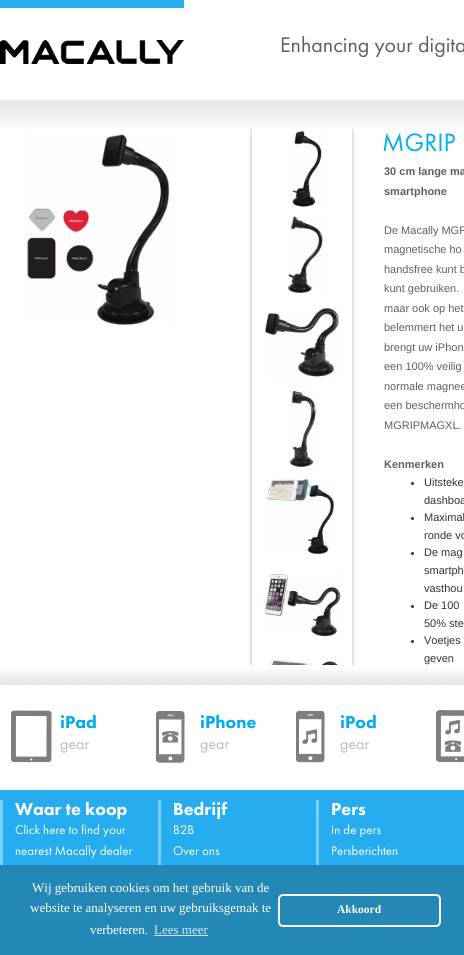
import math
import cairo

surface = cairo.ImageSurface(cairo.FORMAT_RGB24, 464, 955)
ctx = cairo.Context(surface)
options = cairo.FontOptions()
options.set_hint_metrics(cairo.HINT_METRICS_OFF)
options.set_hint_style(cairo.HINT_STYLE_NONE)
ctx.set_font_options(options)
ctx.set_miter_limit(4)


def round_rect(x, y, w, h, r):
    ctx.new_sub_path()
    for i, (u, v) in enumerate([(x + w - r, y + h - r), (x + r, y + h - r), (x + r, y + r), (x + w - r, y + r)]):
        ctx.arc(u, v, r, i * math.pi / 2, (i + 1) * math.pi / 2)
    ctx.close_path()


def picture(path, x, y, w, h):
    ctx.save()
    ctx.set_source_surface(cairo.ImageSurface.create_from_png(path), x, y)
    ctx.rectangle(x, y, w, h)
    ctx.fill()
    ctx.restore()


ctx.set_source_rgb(1, 1, 1)
ctx.paint()
picture("img1.png", 0, 100, 464, 28)
picture("img2.png", 0, 0, 184, 64)
ctx.select_font_face("Futura PT")
ctx.set_font_size(22)
ctx.set_source_rgb(0.376, 0.373, 0.373)
ctx.move_to(280, 52)
ctx.show_text("Enhancing your digita")
picture("img3.png", 0, 669, 464, 16)
ctx.set_font_size(26)
ctx.set_source_rgb(0, 0.686, 0.914)
ctx.move_to(382, 151)
ctx.show_text("MGRIP")
picture("img4.png", 27, 134, 143, 191)
ctx.set_source_rgb(0.89, 0.89, 0.89)
ctx.rectangle(352, 129, 2, 536)
ctx.fill()
ctx.rectangle(250, 129, 2, 536)
ctx.fill()
picture("img5.png", 292, 131, 30, 76)
picture("img6.png", 288, 216, 35, 77)
picture("img7.png", 265, 308, 74, 69)
picture("img8.png", 289, 391, 27, 76)
picture("img9.png", 266, 478, 68, 77)
picture("img10.png", 265, 574, 76, 63)
picture("img11.png", 268, 659, 70, 6)
ctx.select_font_face("Liberation Sans", cairo.FONT_SLANT_NORMAL, cairo.FONT_WEIGHT_BOLD)
ctx.set_font_size(11)
ctx.set_source_rgb(0.376, 0.373, 0.373)
ctx.move_to(384, 175)
ctx.show_text("30 cm lange ma")
ctx.move_to(384, 195)
ctx.show_text("smartphone")
ctx.select_font_face("Liberation Sans")
ctx.move_to(384, 234)
ctx.show_text("De Macally MGR")
ctx.move_to(384, 253)
ctx.show_text("magnetische ho")
ctx.move_to(384, 273)
ctx.show_text("handsfree kunt b")
ctx.move_to(384, 292)
ctx.show_text("kunt gebruiken.")
ctx.move_to(384, 312)
ctx.show_text("maar ook op het")
ctx.move_to(384, 331)
ctx.show_text("belemmert het u")
ctx.move_to(384, 351)
ctx.show_text("brengt uw iPhon")
ctx.move_to(384, 370)
ctx.show_text("een 100% veilig")
ctx.move_to(384, 390)
ctx.show_text("normale magnee")
ctx.move_to(384, 409)
ctx.show_text("een beschermho")
ctx.move_to(384, 429)
ctx.show_text("MGRIPMAGXL.")
ctx.select_font_face("Liberation Sans", cairo.FONT_SLANT_NORMAL, cairo.FONT_WEIGHT_BOLD)
ctx.move_to(384, 468)
ctx.show_text("Kenmerken")
ctx.set_source_rgb(0.2, 0.2, 0.2)
ctx.new_path()
ctx.arc(412.5, 483.5, 1.5, 0, 2 * math.pi)
ctx.fill()
ctx.select_font_face("Liberation Sans")
ctx.move_to(424, 486)
ctx.show_text("Uitsteke")
ctx.move_to(424, 504)
ctx.show_text("dashboa")
ctx.new_path()
ctx.arc(412.5, 518.5, 1.5, 0, 2 * math.pi)
ctx.fill()
ctx.move_to(424, 521)
ctx.show_text("Maximal")
ctx.move_to(424, 539)
ctx.show_text("ronde vo")
ctx.new_path()
ctx.arc(412.5, 553.5, 1.5, 0, 2 * math.pi)
ctx.fill()
ctx.move_to(424, 556)
ctx.show_text("De mag")
ctx.move_to(424, 574)
ctx.show_text("smartph")
ctx.move_to(424, 592)
ctx.show_text("vasthou")
ctx.new_path()
ctx.arc(412.5, 606.5, 1.5, 0, 2 * math.pi)
ctx.fill()
ctx.move_to(424, 609)
ctx.show_text("De 100")
ctx.move_to(424, 627)
ctx.show_text("50% ste")
ctx.new_path()
ctx.arc(412.5, 641.5, 1.5, 0, 2 * math.pi)
ctx.fill()
ctx.move_to(424, 644)
ctx.show_text("Voetjes")
ctx.move_to(424, 662)
ctx.show_text("geven")
picture("img12.png", 11, 710, 41, 53)
ctx.select_font_face("Futura PT Black")
ctx.set_font_size(18)
ctx.set_source_rgb(0, 0.671, 0.957)
ctx.move_to(60, 728)
ctx.show_text("iPad")
ctx.select_font_face("Futura PT")
ctx.set_font_size(16)
ctx.set_source_rgb(0.733, 0.733, 0.733)
ctx.move_to(60, 749)
ctx.show_text("gear")
picture("img13.png", 156, 711, 29, 52)
ctx.select_font_face("Futura PT Black")
ctx.set_font_size(18)
ctx.set_source_rgb(0, 0.671, 0.957)
ctx.move_to(200, 728)
ctx.show_text("iPhone")
ctx.select_font_face("Futura PT")
ctx.set_font_size(16)
ctx.set_source_rgb(0.733, 0.733, 0.733)
ctx.move_to(200, 749)
ctx.show_text("gear")
picture("img14.png", 296, 710, 29, 53)
ctx.select_font_face("Futura PT Black")
ctx.set_font_size(18)
ctx.set_source_rgb(0, 0.671, 0.957)
ctx.move_to(340, 728)
ctx.show_text("iPod")
ctx.select_font_face("Futura PT")
ctx.set_font_size(16)
ctx.set_source_rgb(0.733, 0.733, 0.733)
ctx.move_to(340, 749)
ctx.show_text("gear")
picture("img15.png", 435, 710, 29, 52)
picture("img16.png", 0, 790, 464, 75)
ctx.set_source_rgb(0.49, 0.808, 0.961)
ctx.rectangle(0, 800, 3, 65)
ctx.fill()
ctx.select_font_face("Futura PT Black")
ctx.set_font_size(18)
ctx.set_source_rgb(1, 1, 1)
ctx.move_to(15, 815)
ctx.show_text("Waar te koop")
ctx.select_font_face("Futura PT")
ctx.set_font_size(13)
ctx.move_to(15, 834)
ctx.show_text("Click here to find your")
ctx.move_to(15, 855)
ctx.show_text("nearest Macally dealer")
ctx.set_source_rgb(0.49, 0.808, 0.961)
ctx.rectangle(158, 800, 3, 65)
ctx.fill()
ctx.select_font_face("Futura PT Black")
ctx.set_font_size(18)
ctx.set_source_rgb(1, 1, 1)
ctx.move_to(173, 815)
ctx.show_text("Bedrijf")
ctx.select_font_face("Futura PT")
ctx.set_font_size(13)
ctx.move_to(173, 834)
ctx.show_text("B2B")
ctx.move_to(173, 855)
ctx.show_text("Over ons")
ctx.set_source_rgb(0.49, 0.808, 0.961)
ctx.rectangle(316, 800, 3, 65)
ctx.fill()
ctx.select_font_face("Futura PT Black")
ctx.set_font_size(18)
ctx.set_source_rgb(1, 1, 1)
ctx.move_to(331, 815)
ctx.show_text("Pers")
ctx.select_font_face("Futura PT")
ctx.set_font_size(13)
ctx.move_to(331, 834)
ctx.show_text("In de pers")
ctx.move_to(331, 855)
ctx.show_text("Persberichten")
ctx.set_source_rgb(0.141, 0.533, 0.718)
ctx.rectangle(0, 865, 464, 90)
ctx.fill()
ctx.select_font_face("Liberation Serif")
ctx.set_source_rgb(1, 1, 1)
ctx.move_to(32, 892)
ctx.show_text("Wij gebruiken cookies om het gebruik van de")
ctx.move_to(30, 912)
ctx.show_text("website te analyseren en uw gebruiksgemak te")
ctx.move_to(90, 934)
ctx.show_text("verbeteren.")
ctx.set_source_rgb(0.827, 0.906, 0.945)
ctx.move_to(154, 934)
ctx.show_text("Lees meer")
ctx.rectangle(154, 935, 54, 1)
ctx.fill()
round_rect(279, 895, 161, 31, 4)
ctx.set_source_rgb(1, 1, 1)
ctx.stroke()
ctx.select_font_face("Liberation Serif", cairo.FONT_SLANT_NORMAL, cairo.FONT_WEIGHT_BOLD)
ctx.set_font_size(11.5)
ctx.move_to(337, 913)
ctx.show_text("Akkoord")
surface.write_to_png("page.png")
